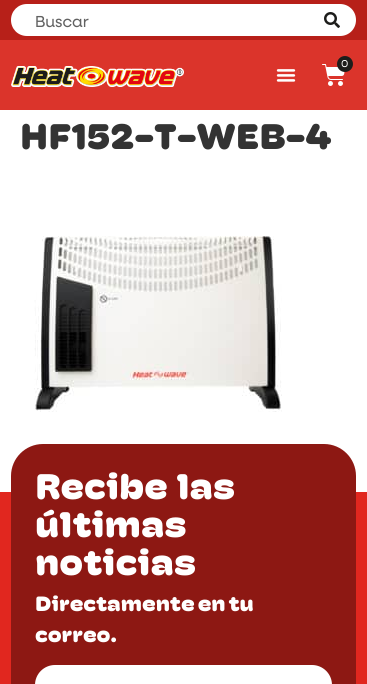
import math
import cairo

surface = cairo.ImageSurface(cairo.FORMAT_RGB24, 367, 684)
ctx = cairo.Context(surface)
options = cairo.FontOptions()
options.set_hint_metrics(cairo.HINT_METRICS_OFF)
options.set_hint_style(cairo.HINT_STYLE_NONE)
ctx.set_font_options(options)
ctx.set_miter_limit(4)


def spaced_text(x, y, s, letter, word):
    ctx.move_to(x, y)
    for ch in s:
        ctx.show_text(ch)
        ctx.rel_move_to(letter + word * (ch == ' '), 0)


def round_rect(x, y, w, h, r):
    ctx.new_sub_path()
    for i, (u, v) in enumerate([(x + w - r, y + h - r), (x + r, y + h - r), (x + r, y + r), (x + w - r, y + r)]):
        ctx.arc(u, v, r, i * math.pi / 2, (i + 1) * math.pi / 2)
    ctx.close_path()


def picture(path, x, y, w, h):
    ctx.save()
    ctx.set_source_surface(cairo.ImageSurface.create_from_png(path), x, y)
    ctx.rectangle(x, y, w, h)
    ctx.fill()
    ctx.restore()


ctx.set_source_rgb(1, 1, 1)
ctx.paint()
ctx.set_source_rgb(0.718, 0.125, 0.098)
ctx.rectangle(0, 0, 367, 40)
ctx.fill()
ctx.set_source_rgb(1, 1, 1)
ctx.new_path()
ctx.move_to(27, 4)
ctx.line_to(316, 4)
ctx.line_to(316, 36)
ctx.line_to(27, 36)
ctx.curve_to(18, 36, 11, 29, 11, 20)
ctx.curve_to(11, 11, 18, 4, 27, 4)
ctx.close_path()
ctx.fill()
ctx.select_font_face("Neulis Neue")
ctx.set_font_size(16)
ctx.set_source_rgb(0.38, 0.38, 0.38)
ctx.move_to(35, 27)
ctx.show_text("Buscar")
ctx.set_source_rgb(1, 1, 1)
ctx.new_path()
ctx.move_to(316, 4)
ctx.line_to(340, 4)
ctx.curve_to(349, 4, 356, 11, 356, 20)
ctx.curve_to(356, 29, 349, 36, 340, 36)
ctx.line_to(316, 36)
ctx.close_path()
ctx.fill()
picture("img1.png", 324, 12, 16, 16)
ctx.set_source_rgb(0.859, 0.204, 0.169)
ctx.rectangle(0, 40, 367, 70)
ctx.fill()
picture("img2.png", 322, 64, 23, 22)
ctx.set_source_rgb(0.114, 0.114, 0.106)
ctx.arc(345, 64, 8, 0, 2 * math.pi)
ctx.fill()
ctx.select_font_face("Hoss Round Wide")
ctx.set_font_size(10)
ctx.set_source_rgb(1, 1, 1)
ctx.move_to(341, 67)
ctx.show_text("0")
picture("img3.png", 276, 69, 20, 13)
picture("img4.png", 11, 66, 173, 21)
ctx.select_font_face("Hoss Round Wide Black")
ctx.set_font_size(36)
ctx.set_source_rgb(0.2, 0.2, 0.2)
ctx.move_to(20, 149)
ctx.show_text("HF152-T-WEB-4")
picture("img5.png", 34, 236, 248, 176)
ctx.set_source_rgb(0.882, 0.153, 0.122)
ctx.rectangle(0, 492, 367, 192)
ctx.fill()
ctx.set_source_rgb(0.553, 0.094, 0.075)
round_rect(11, 444, 345, 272, 32)
ctx.fill()
ctx.set_source_rgb(1, 1, 1)
ctx.move_to(35, 499)
ctx.show_text("Recibe las")
ctx.move_to(35, 537)
ctx.show_text("últimas")
ctx.move_to(35, 575)
ctx.show_text("noticias")
ctx.set_font_size(21)
spaced_text(35, 611, "Directamente en tu", 0, -2)
ctx.move_to(35, 642)
ctx.show_text("correo.")
round_rect(35, 665, 297, 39, 20)
ctx.fill()
surface.write_to_png("page.png")
